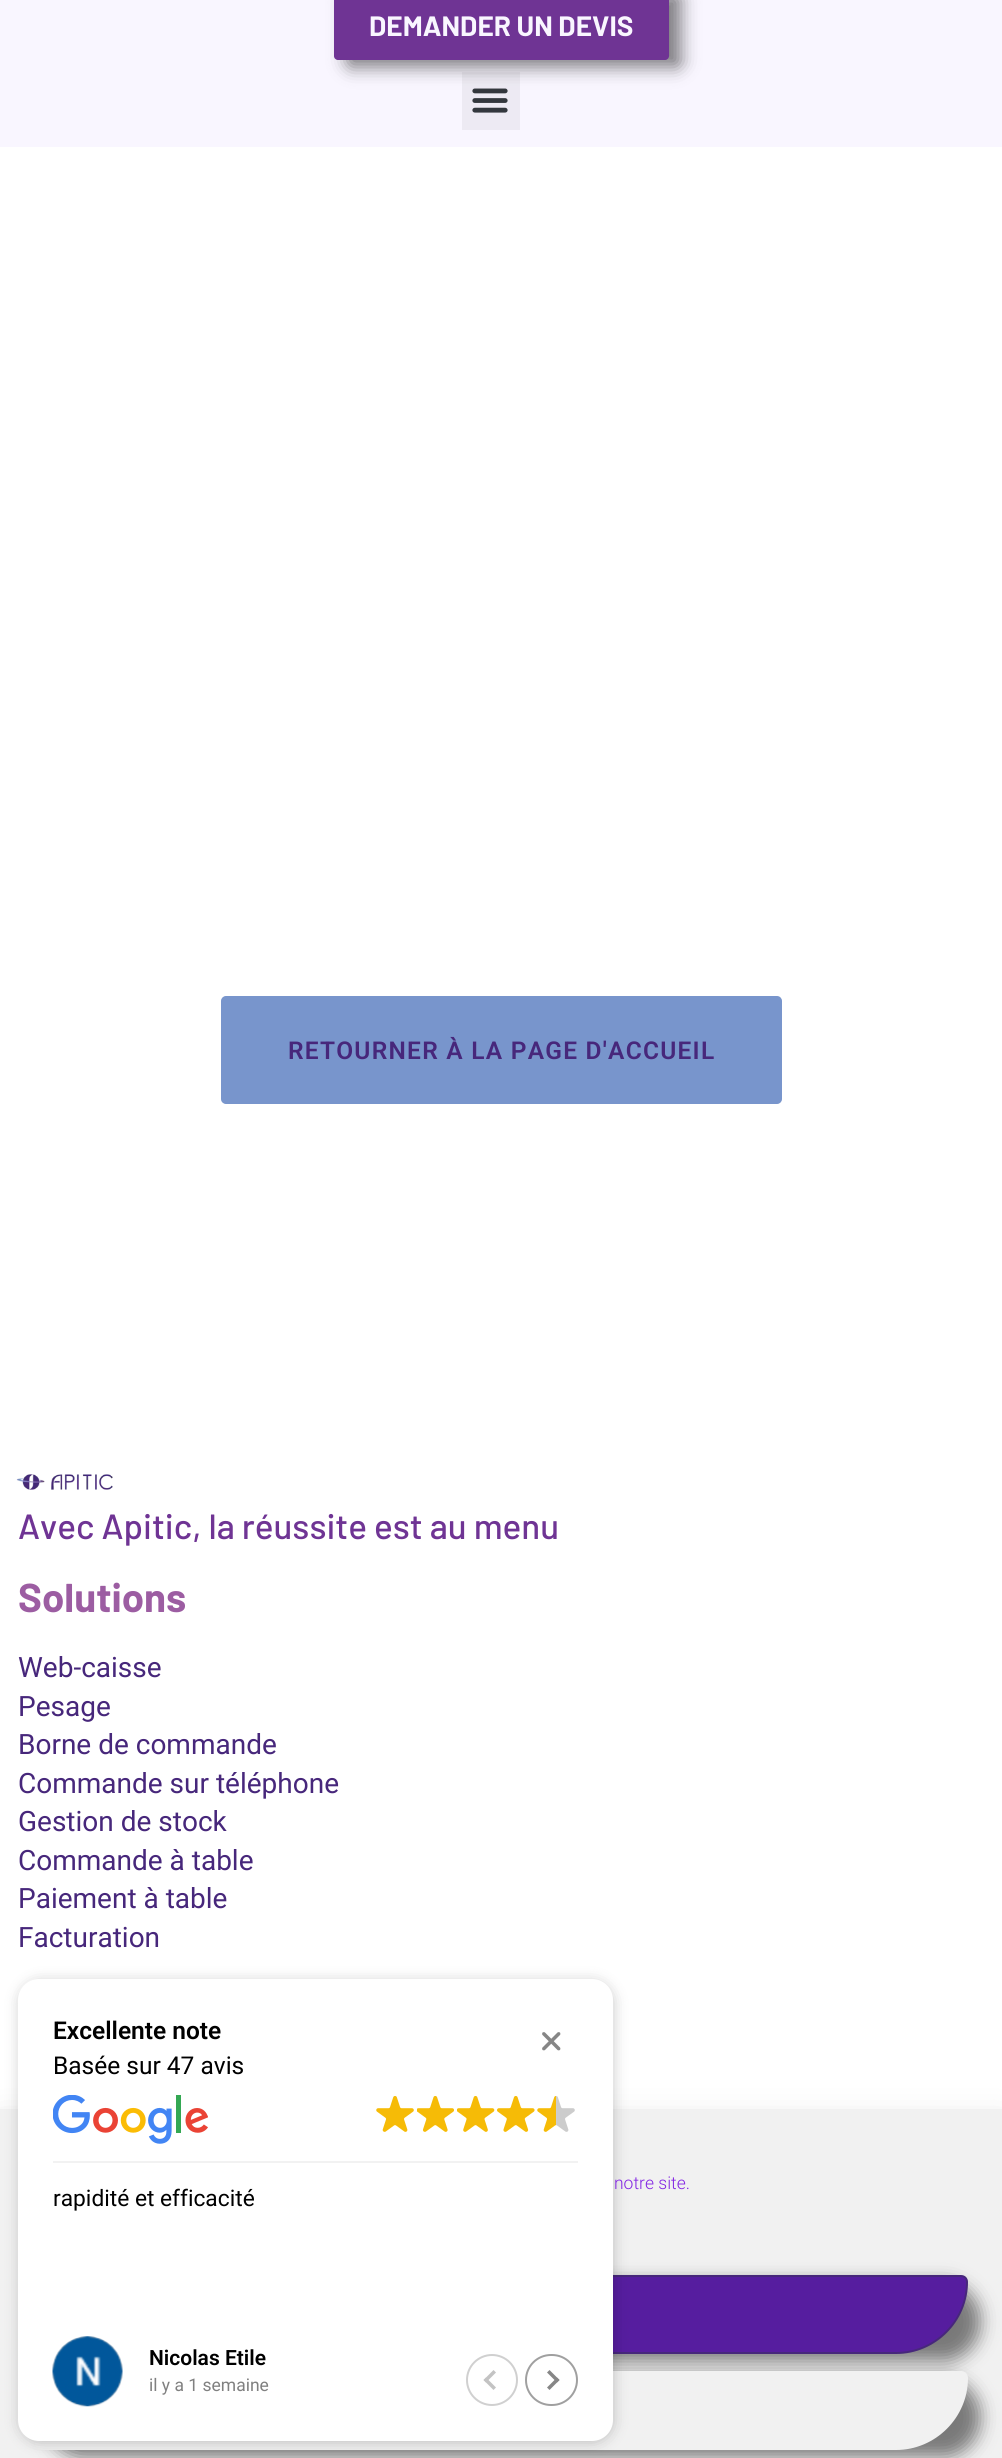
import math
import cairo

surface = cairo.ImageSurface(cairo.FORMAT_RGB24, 1002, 2458)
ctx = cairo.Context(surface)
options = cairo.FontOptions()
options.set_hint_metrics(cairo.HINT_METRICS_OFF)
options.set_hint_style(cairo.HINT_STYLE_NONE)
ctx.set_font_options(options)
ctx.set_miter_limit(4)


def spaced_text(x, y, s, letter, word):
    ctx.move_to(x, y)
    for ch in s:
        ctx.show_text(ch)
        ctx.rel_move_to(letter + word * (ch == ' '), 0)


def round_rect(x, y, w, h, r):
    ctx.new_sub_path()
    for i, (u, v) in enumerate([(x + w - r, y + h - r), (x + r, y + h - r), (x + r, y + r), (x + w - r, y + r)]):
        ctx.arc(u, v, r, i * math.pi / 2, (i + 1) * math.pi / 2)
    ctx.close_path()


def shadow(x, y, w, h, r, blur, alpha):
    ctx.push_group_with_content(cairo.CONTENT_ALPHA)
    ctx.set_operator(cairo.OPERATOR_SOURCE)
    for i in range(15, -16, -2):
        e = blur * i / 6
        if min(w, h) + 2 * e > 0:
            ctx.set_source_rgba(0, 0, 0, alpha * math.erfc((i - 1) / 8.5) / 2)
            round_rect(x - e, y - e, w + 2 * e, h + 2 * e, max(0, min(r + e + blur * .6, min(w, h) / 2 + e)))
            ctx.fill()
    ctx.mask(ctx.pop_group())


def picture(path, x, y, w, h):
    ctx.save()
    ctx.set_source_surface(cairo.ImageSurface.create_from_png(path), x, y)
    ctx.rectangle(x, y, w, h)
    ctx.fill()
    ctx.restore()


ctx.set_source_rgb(1, 1, 1)
ctx.paint()
ctx.set_source_rgb(0.976, 0.961, 1)
ctx.rectangle(0, 0, 1002, 147)
ctx.fill()
ctx.set_source_rgb(0, 0, 0)
shadow(347, -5, 334, 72, 4, 9, 0.5)
ctx.set_source_rgb(0.435, 0.204, 0.58)
round_rect(334, -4, 335, 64, 4)
ctx.fill()
ctx.select_font_face("Barlow", cairo.FONT_SLANT_NORMAL, cairo.FONT_WEIGHT_BOLD)
ctx.set_font_size(28)
ctx.set_source_rgb(0.976, 0.961, 1)
ctx.move_to(369, 36)
ctx.show_text("DEMANDER UN DEVIS")
ctx.set_source_rgba(0, 0, 0, 0.05)
ctx.rectangle(462, 72, 58, 58)
ctx.fill()
picture("img1.png", 472, 88, 36, 25)
ctx.set_source_rgb(0.471, 0.584, 0.8)
round_rect(222, 997, 559, 106, 4)
ctx.fill_preserve()
ctx.stroke()
ctx.select_font_face("Roboto SemiBold")
ctx.set_font_size(24.5)
ctx.set_source_rgb(0.278, 0.153, 0.482)
spaced_text(288, 1059, "RETOURNER À LA PAGE D'ACCUEIL", 1.25, 0)
picture("img2.png", 16, 1474, 97, 16)
ctx.select_font_face("Barlow Medium")
ctx.set_font_size(35)
ctx.set_source_rgb(0.435, 0.204, 0.58)
ctx.move_to(18, 1539)
ctx.show_text("Avec Apitic, la réussite est au menu")
ctx.select_font_face("Barlow", cairo.FONT_SLANT_NORMAL, cairo.FONT_WEIGHT_BOLD)
ctx.set_font_size(40.25)
ctx.set_source_rgb(0.612, 0.365, 0.635)
ctx.move_to(18, 1612)
ctx.show_text("Solutions")
ctx.select_font_face("Roboto")
ctx.set_font_size(28)
ctx.set_source_rgb(0.278, 0.153, 0.482)
ctx.move_to(18, 1677)
ctx.show_text("Web-caisse")
ctx.move_to(18, 1716)
ctx.show_text("Pesage")
ctx.move_to(18, 1754)
ctx.show_text("Borne de commande")
ctx.move_to(18, 1793)
ctx.show_text("Commande sur téléphone")
ctx.move_to(18, 1831)
ctx.show_text("Gestion de stock")
ctx.move_to(18, 1870)
ctx.show_text("Commande à table")
ctx.move_to(18, 1908)
ctx.show_text("Paiement à table")
ctx.move_to(18, 1947)
ctx.show_text("Facturation")
ctx.set_source_rgb(0, 0, 0)
shadow(0, 2126, 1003, 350, 0, 17.5, 0.19)
ctx.set_source_rgb(0.945, 0.945, 0.945)
ctx.rectangle(0, 2109, 1002, 349)
ctx.fill()
ctx.set_source_rgb(0, 0, 0)
shadow(47, 2282, 933, 79, 72, 9, 0.5)
ctx.set_source_rgb(0.337, 0.114, 0.624)
ctx.new_path()
ctx.move_to(107, 2276)
ctx.line_to(961, 2276)
ctx.curve_to(964.5, 2276, 967, 2278.5, 967, 2282)
ctx.curve_to(967, 2321, 935, 2353, 896, 2353)
ctx.line_to(42, 2353)
ctx.curve_to(38.5, 2353, 36, 2350.5, 36, 2347)
ctx.curve_to(36, 2308, 68, 2276, 107, 2276)
ctx.close_path()
ctx.fill_preserve()
ctx.set_source_rgb(0.278, 0.153, 0.482)
ctx.stroke()
ctx.set_source_rgb(0, 0, 0)
shadow(47, 2378, 933, 79, 72, 9, 0.5)
ctx.set_source_rgb(0.945, 0.945, 0.945)
ctx.new_path()
ctx.move_to(107, 2372)
ctx.line_to(961, 2372)
ctx.curve_to(964.5, 2372, 967, 2374.5, 967, 2378)
ctx.curve_to(967, 2417, 935, 2449, 896, 2449)
ctx.line_to(42, 2449)
ctx.curve_to(38.5, 2449, 36, 2446.5, 36, 2443)
ctx.curve_to(36, 2404, 68, 2372, 107, 2372)
ctx.close_path()
ctx.fill_preserve()
ctx.stroke()
ctx.set_source_rgb(0, 0, 0)
shadow(19, 1981, 595, 462, 21, 7, 0.2)
ctx.set_source_rgb(1, 1, 1)
round_rect(18, 1979, 595, 462, 21)
ctx.fill()
ctx.select_font_face("Roboto SemiBold")
ctx.set_font_size(24.5)
ctx.set_source_rgb(0, 0, 0)
ctx.move_to(53, 2039)
ctx.show_text("Excellente note")
ctx.select_font_face("Roboto")
ctx.move_to(53, 2074)
ctx.show_text("Basée sur 47 avis")
ctx.set_source_rgb(0.949, 0.949, 0.949)
ctx.rectangle(53, 2161, 525, 2)
ctx.fill()
picture("img3.png", 53, 2095, 155, 49)
picture("img4.png", 376, 2096, 38, 36)
picture("img5.png", 417, 2096, 37, 36)
picture("img6.png", 457, 2096, 38, 36)
picture("img7.png", 497, 2096, 38, 36)
picture("img8.png", 537, 2096, 38, 36)
ctx.set_source_rgb(0.525, 0.525, 0.525)
ctx.new_path()
ctx.move_to(545, 2032.5)
ctx.line_to(560, 2047.5)
ctx.curve_to(560.5, 2048, 560.5, 2049, 560, 2050)
ctx.curve_to(559, 2050.5, 558, 2050.5, 557.5, 2050)
ctx.line_to(542.5, 2035)
ctx.curve_to(542, 2034.5, 542, 2033.5, 542.5, 2032.5)
ctx.curve_to(543.5, 2032, 544.5, 2032, 545, 2032.5)
ctx.close_path()
ctx.fill()
ctx.new_path()
ctx.move_to(542.5, 2047.5)
ctx.line_to(557.5, 2032.5)
ctx.curve_to(558, 2032, 559, 2032, 560, 2032.5)
ctx.curve_to(560.5, 2033.5, 560.5, 2034.5, 560, 2035)
ctx.line_to(545, 2050)
ctx.curve_to(544.5, 2050.5, 543.5, 2050.5, 542.5, 2050)
ctx.curve_to(542, 2049, 542, 2048, 542.5, 2047.5)
ctx.close_path()
ctx.fill()
ctx.set_font_size(22.75)
ctx.set_source_rgb(0, 0, 0)
ctx.move_to(53, 2206)
ctx.show_text("rapidité et efficacité")
picture("img9.png", 52, 2336, 71, 71)
ctx.select_font_face("Roboto SemiBold")
ctx.set_font_size(21)
ctx.move_to(149, 2365)
ctx.show_text("Nicolas Etile")
ctx.select_font_face("Roboto")
ctx.set_font_size(17.5)
ctx.set_source_rgb(0.502, 0.502, 0.502)
ctx.move_to(149, 2391)
ctx.show_text("il y a 1 semaine")
ctx.new_path()
ctx.arc(492, 2380, 25, 0, 2 * math.pi)
ctx.set_source_rgb(0.816, 0.816, 0.816)
ctx.stroke()
ctx.set_source_rgb(0.765, 0.765, 0.765)
ctx.new_path()
ctx.move_to(483.5, 2380)
ctx.line_to(493.5, 2370)
ctx.line_to(496, 2372.5)
ctx.line_to(486, 2382.5)
ctx.close_path()
ctx.fill()
ctx.new_path()
ctx.move_to(483.5, 2380)
ctx.line_to(486, 2377.5)
ctx.line_to(496, 2387.5)
ctx.line_to(493.5, 2390)
ctx.close_path()
ctx.fill()
round_rect(526, 2355, 51, 50, 25)
ctx.set_source_rgb(0.627, 0.627, 0.627)
ctx.stroke()
ctx.set_source_rgb(0.525, 0.525, 0.525)
ctx.new_path()
ctx.move_to(559.5, 2380)
ctx.line_to(549.5, 2390)
ctx.line_to(547, 2387.5)
ctx.line_to(557, 2377.5)
ctx.close_path()
ctx.fill()
ctx.new_path()
ctx.move_to(559.5, 2380)
ctx.line_to(557, 2382.5)
ctx.line_to(547, 2372.5)
ctx.line_to(549.5, 2370)
ctx.close_path()
ctx.fill()
ctx.select_font_face("Roboto Light")
ctx.set_source_rgb(0.51, 0.141, 0.89)
ctx.move_to(614, 2189)
ctx.show_text("notre site.")
surface.write_to_png("page.png")
